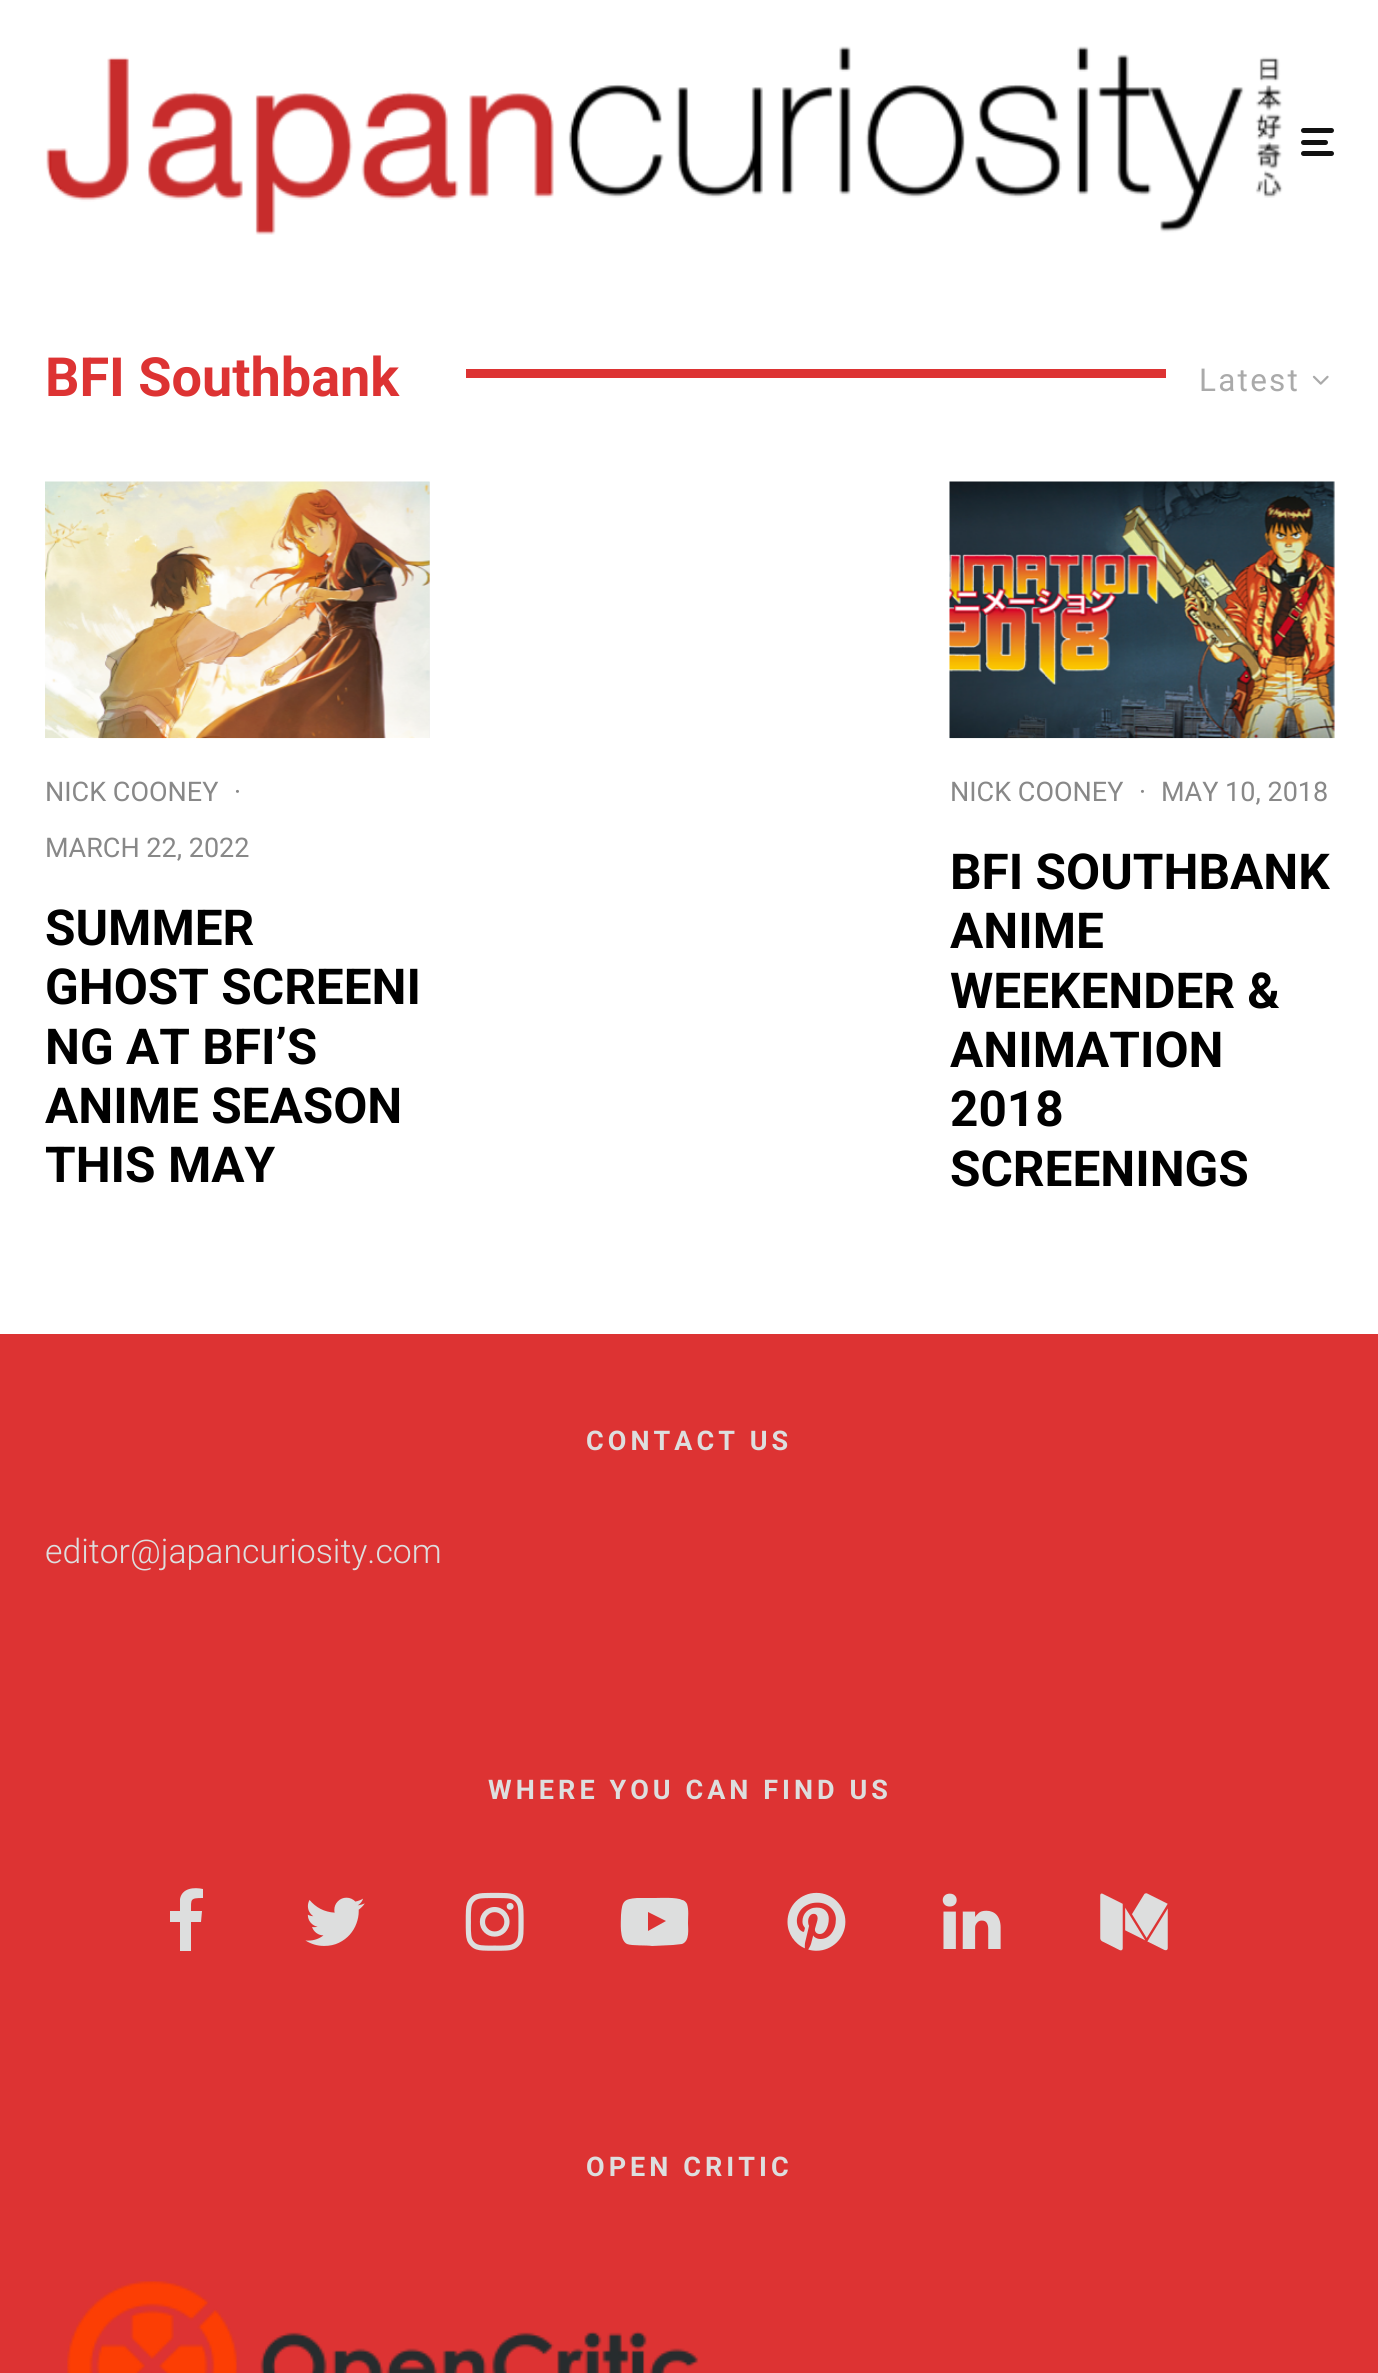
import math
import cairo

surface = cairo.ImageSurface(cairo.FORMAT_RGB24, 1378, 2373)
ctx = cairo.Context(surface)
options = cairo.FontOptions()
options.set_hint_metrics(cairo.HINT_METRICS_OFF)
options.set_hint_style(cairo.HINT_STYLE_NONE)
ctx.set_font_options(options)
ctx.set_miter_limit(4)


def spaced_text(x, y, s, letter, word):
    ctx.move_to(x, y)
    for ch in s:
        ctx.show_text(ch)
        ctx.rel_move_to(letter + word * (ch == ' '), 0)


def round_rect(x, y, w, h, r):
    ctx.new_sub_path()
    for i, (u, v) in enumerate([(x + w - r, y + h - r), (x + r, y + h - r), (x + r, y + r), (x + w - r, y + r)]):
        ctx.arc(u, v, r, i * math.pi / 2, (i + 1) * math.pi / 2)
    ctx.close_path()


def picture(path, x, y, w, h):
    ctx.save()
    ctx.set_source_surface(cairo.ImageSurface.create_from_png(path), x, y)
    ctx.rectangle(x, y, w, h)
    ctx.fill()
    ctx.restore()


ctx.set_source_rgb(1, 1, 1)
ctx.paint()
picture("img1.png", 46, 46, 1237, 189)
ctx.set_source_rgb(0.067, 0.067, 0.067)
round_rect(1301, 140, 27, 5, 2.5)
ctx.fill()
round_rect(1301, 128, 33, 5, 2.5)
ctx.fill()
round_rect(1301, 151, 33, 5, 2.5)
ctx.fill()
ctx.select_font_face("Roboto", cairo.FONT_SLANT_NORMAL, cairo.FONT_WEIGHT_BOLD)
ctx.set_font_size(54)
ctx.set_source_rgb(0.867, 0.2, 0.2)
ctx.move_to(45, 396)
ctx.show_text("BFI Southbank")
ctx.rectangle(466, 369, 700, 9)
ctx.fill()
ctx.select_font_face("Roboto")
ctx.set_font_size(31.5)
ctx.set_source_rgb(0.667, 0.667, 0.667)
spaced_text(1199, 391, "Latest", 2.25, 0)
picture("img2.png", 1312, 375, 17, 10)
ctx.set_source_rgb(0.933, 0.933, 0.933)
ctx.rectangle(429, 482, 1, 256)
ctx.fill()
picture("img3.png", 45, 481, 385, 258)
ctx.set_font_size(27)
ctx.set_source_rgb(0.533, 0.533, 0.533)
ctx.move_to(45, 801)
ctx.show_text("NICK COONEY")
ctx.move_to(234, 801)
ctx.show_text("·")
ctx.move_to(45, 857)
ctx.show_text("MARCH 22, 2022")
ctx.select_font_face("Roboto", cairo.FONT_SLANT_NORMAL, cairo.FONT_WEIGHT_BOLD)
ctx.set_font_size(49.5)
ctx.set_source_rgb(0, 0, 0)
ctx.move_to(45, 945)
ctx.show_text("SUMMER")
ctx.move_to(45, 1004)
ctx.show_text("GHOST SCREENI")
ctx.move_to(45, 1064)
ctx.show_text("NG AT BFI’S")
ctx.move_to(45, 1123)
ctx.show_text("ANIME SEASON")
ctx.move_to(45, 1182)
ctx.show_text("THIS MAY")
picture("img4.png", 949, 481, 386, 258)
ctx.select_font_face("Roboto")
ctx.set_font_size(27)
ctx.set_source_rgb(0.533, 0.533, 0.533)
ctx.move_to(950, 801)
ctx.show_text("NICK COONEY")
ctx.move_to(1139, 801)
ctx.show_text("·")
ctx.move_to(1161, 801)
ctx.show_text("MAY 10, 2018")
ctx.select_font_face("Roboto", cairo.FONT_SLANT_NORMAL, cairo.FONT_WEIGHT_BOLD)
ctx.set_font_size(49.5)
ctx.set_source_rgb(0, 0, 0)
ctx.move_to(950, 889)
ctx.show_text("BFI SOUTHBANK")
ctx.move_to(950, 948)
ctx.show_text("ANIME")
ctx.move_to(950, 1008)
ctx.show_text("WEEKENDER &")
ctx.move_to(950, 1067)
ctx.show_text("ANIMATION")
ctx.move_to(950, 1126)
ctx.show_text("2018")
ctx.move_to(950, 1186)
ctx.show_text("SCREENINGS")
ctx.set_source_rgb(0.867, 0.2, 0.2)
ctx.rectangle(0, 1334, 1378, 1039)
ctx.fill()
ctx.set_font_size(27)
ctx.set_source_rgb(0.867, 0.871, 0.871)
spaced_text(586, 1450, "CONTACT US", 4.05, 0)
ctx.select_font_face("Roboto Light")
ctx.set_font_size(33.75)
ctx.move_to(45, 1563)
ctx.show_text("editor@japancuriosity.com")
ctx.select_font_face("Roboto", cairo.FONT_SLANT_NORMAL, cairo.FONT_WEIGHT_BOLD)
ctx.set_font_size(27)
spaced_text(488, 1799, "WHERE YOU CAN FIND US", 4.05, 0)
ctx.new_path()
ctx.move_to(203, 1889)
ctx.line_to(203, 1898)
ctx.curve_to(190, 1898, 191, 1899, 191, 1911)
ctx.line_to(202, 1911)
ctx.line_to(201, 1922)
ctx.line_to(191, 1922)
ctx.line_to(191, 1951)
ctx.line_to(180, 1951)
ctx.line_to(180, 1922)
ctx.line_to(170, 1922)
ctx.line_to(170, 1911)
ctx.line_to(180, 1911)
ctx.line_to(180, 1899)
ctx.curve_to(182, 1888, 194, 1887, 203, 1889)
ctx.close_path()
ctx.fill()
picture("img5.png", 305, 1897, 60, 49)
picture("img6.png", 465, 1892, 59, 59)
ctx.new_path()
ctx.move_to(648, 1931)
ctx.line_to(666, 1921)
ctx.line_to(648, 1912)
ctx.close_path()
ctx.move_to(655, 1898)
ctx.curve_to(660, 1898, 677, 1897, 682, 1900)
ctx.curve_to(684, 1900, 686, 1902, 687, 1904)
ctx.curve_to(689, 1910, 688, 1917, 688, 1923)
ctx.curve_to(688, 1929, 690, 1941, 682, 1944)
ctx.line_to(673, 1945)
ctx.line_to(652, 1946)
ctx.curve_to(647, 1945, 632, 1946, 627, 1944)
ctx.curve_to(619, 1940, 621, 1922, 621, 1915)
ctx.curve_to(622, 1901, 624, 1899, 637, 1898)
ctx.close_path()
ctx.fill()
picture("img7.png", 787, 1892, 59, 59)
picture("img8.png", 942, 1893, 59, 56)
picture("img9.png", 1100, 1893, 68, 58)
spaced_text(586, 2176, "OPEN CRITIC", 4.05, 0)
picture("img10.png", 67, 2281, 632, 92)
surface.write_to_png("page.png")
